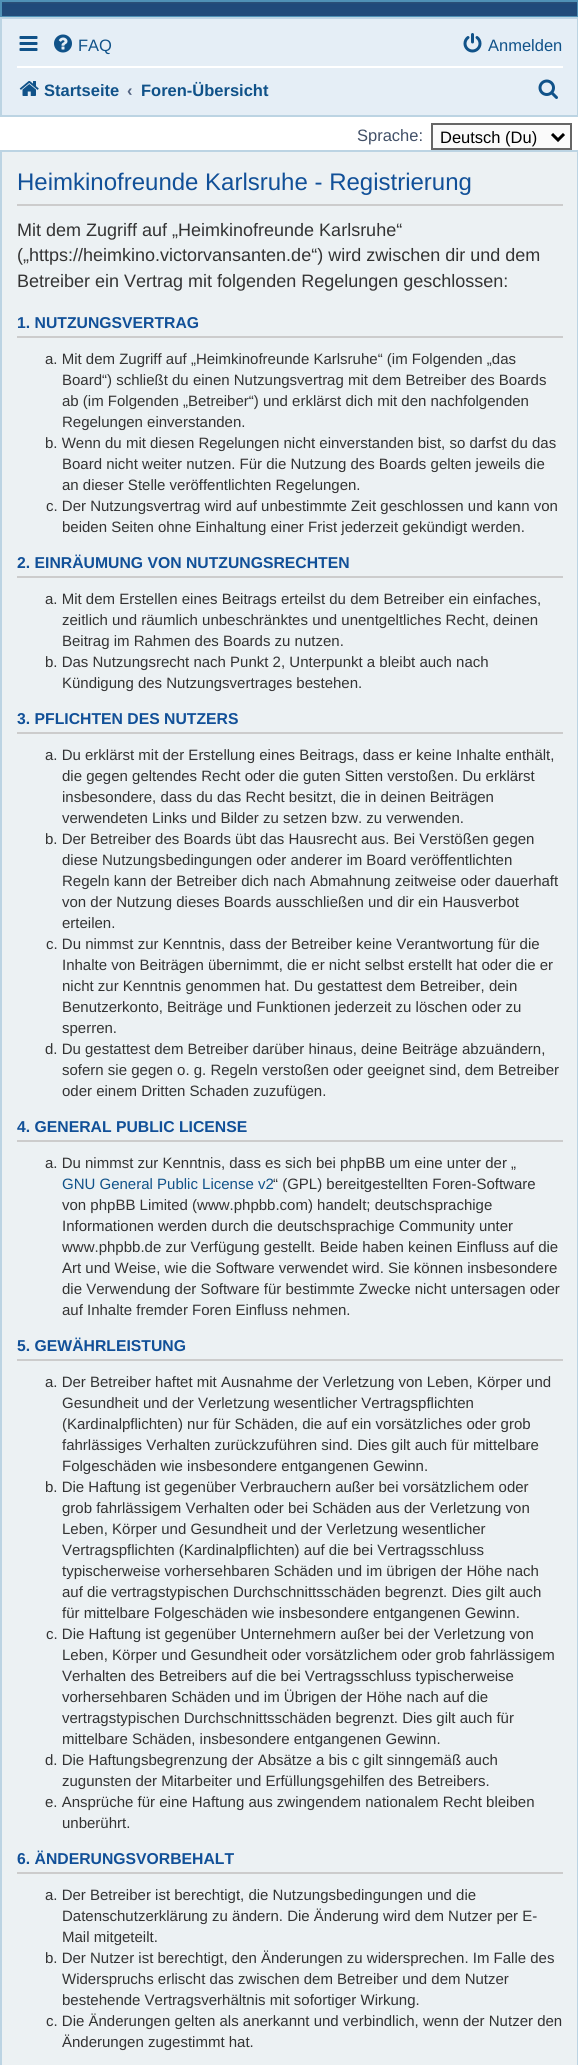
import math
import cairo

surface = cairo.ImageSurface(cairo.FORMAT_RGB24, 578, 2065)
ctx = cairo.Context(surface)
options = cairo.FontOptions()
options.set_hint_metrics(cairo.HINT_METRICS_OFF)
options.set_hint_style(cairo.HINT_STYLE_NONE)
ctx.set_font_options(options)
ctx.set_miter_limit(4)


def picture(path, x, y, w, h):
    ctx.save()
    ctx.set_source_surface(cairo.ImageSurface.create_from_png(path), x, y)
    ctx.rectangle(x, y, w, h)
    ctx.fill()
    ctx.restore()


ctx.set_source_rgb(1, 1, 1)
ctx.paint()
gradient = cairo.LinearGradient(290, 1.5, 290, 139)
gradient.add_color_stop_rgba(0, 0.192, 0.322, 0.459, 1)
gradient.add_color_stop_rgba(0.02, 0.122, 0.29, 0.478, 1)
gradient.add_color_stop_rgba(1, 0.259, 0.353, 0.459, 1)
gradient.add_color_stop_rgba(1, 0.11, 0.18, 0.263, 1)
ctx.set_source(gradient)
ctx.rectangle(2, 2, 575, 14)
ctx.fill()
ctx.rectangle(1, 1, 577, 16)
ctx.set_source_rgb(0.31, 0.569, 0.714)
ctx.stroke()
ctx.set_source_rgb(0.898, 0.933, 0.961)
ctx.rectangle(1, 18, 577, 98)
ctx.fill_preserve()
ctx.set_source_rgb(0.737, 0.831, 0.89)
ctx.stroke()
picture("img1.png", 19, 36, 19, 15)
picture("img2.png", 54, 34, 18, 19)
ctx.select_font_face("Liberation Sans")
ctx.set_font_size(16.5)
ctx.set_source_rgb(0.063, 0.322, 0.537)
ctx.move_to(78, 51)
ctx.show_text("FAQ")
picture("img3.png", 463, 33, 19, 20)
ctx.move_to(488, 51)
ctx.show_text("Anmelden")
ctx.set_source_rgb(1, 1, 1)
ctx.rectangle(17, 66, 546, 2)
ctx.fill()
picture("img4.png", 19, 81, 20, 15)
ctx.select_font_face("Liberation Sans", cairo.FONT_SLANT_NORMAL, cairo.FONT_WEIGHT_BOLD)
ctx.set_source_rgb(0.063, 0.322, 0.537)
ctx.move_to(44, 96)
ctx.show_text("Startseite")
ctx.set_source_rgb(0.325, 0.392, 0.51)
ctx.move_to(127, 96)
ctx.show_text("‹")
ctx.set_source_rgb(0.063, 0.322, 0.537)
ctx.move_to(141, 96)
ctx.show_text("Foren-Übersicht")
picture("img5.png", 538, 79, 20, 20)
ctx.select_font_face("Liberation Sans")
ctx.set_source_rgb(0.259, 0.314, 0.404)
ctx.move_to(357, 141)
ctx.show_text("Sprache:")
ctx.set_source_rgb(0.98, 0.98, 0.98)
ctx.rectangle(432, 124, 139, 25)
ctx.fill_preserve()
ctx.set_source_rgb(0.4, 0.4, 0.4)
ctx.stroke()
ctx.new_path()
ctx.move_to(552, 134)
ctx.line_to(558, 140)
ctx.line_to(564, 134)
ctx.set_source_rgb(0, 0, 0)
ctx.set_line_width(3)
ctx.stroke()
ctx.move_to(440, 143)
ctx.show_text("Deutsch (Du)")
ctx.set_source_rgb(0.925, 0.945, 0.953)
ctx.rectangle(1, 151, 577, 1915)
ctx.fill_preserve()
ctx.set_source_rgb(0.737, 0.831, 0.89)
ctx.set_line_width(2)
ctx.stroke()
ctx.set_source_rgb(0.8, 0.8, 0.8)
ctx.rectangle(17, 204, 546, 2)
ctx.fill()
ctx.set_font_size(24)
ctx.set_source_rgb(0.067, 0.314, 0.596)
ctx.move_to(17, 190)
ctx.show_text("Heimkinofreunde Karlsruhe - Registrierung")
ctx.set_font_size(18)
ctx.set_source_rgb(0.2, 0.2, 0.2)
ctx.move_to(17, 236)
ctx.show_text("Mit dem Zugriff auf „Heimkinofreunde Karlsruhe“")
ctx.move_to(17, 261)
ctx.show_text("(„https://heimkino.victorvansanten.de“) wird zwischen dir und dem")
ctx.move_to(17, 287)
ctx.show_text("Betreiber ein Vertrag mit folgenden Regelungen geschlossen:")
ctx.set_source_rgb(0.8, 0.8, 0.8)
ctx.rectangle(17, 336, 546, 2)
ctx.fill()
ctx.select_font_face("Liberation Sans", cairo.FONT_SLANT_NORMAL, cairo.FONT_WEIGHT_BOLD)
ctx.set_font_size(15.75)
ctx.set_source_rgb(0.067, 0.314, 0.596)
ctx.move_to(17, 328)
ctx.show_text("1. NUTZUNGSVERTRAG")
ctx.select_font_face("Liberation Sans")
ctx.set_font_size(15)
ctx.set_source_rgb(0.2, 0.2, 0.2)
ctx.move_to(45, 364)
ctx.show_text("a. Mit dem Zugriff auf „Heimkinofreunde Karlsruhe“ (im Folgenden „das")
ctx.move_to(62, 385)
ctx.show_text("Board“) schließt du einen Nutzungsvertrag mit dem Betreiber des Boards")
ctx.move_to(62, 406)
ctx.show_text("ab (im Folgenden „Betreiber“) und erklärst dich mit den nachfolgenden")
ctx.move_to(62, 427)
ctx.show_text("Regelungen einverstanden.")
ctx.move_to(45, 448)
ctx.show_text("b. Wenn du mit diesen Regelungen nicht einverstanden bist, so darfst du das")
ctx.move_to(62, 469)
ctx.show_text("Board nicht weiter nutzen. Für die Nutzung des Boards gelten jeweils die")
ctx.move_to(62, 490)
ctx.show_text("an dieser Stelle veröffentlichten Regelungen.")
ctx.move_to(46, 511)
ctx.show_text("c. Der Nutzungsvertrag wird auf unbestimmte Zeit geschlossen und kann von")
ctx.move_to(62, 532)
ctx.show_text("beiden Seiten ohne Einhaltung einer Frist jederzeit gekündigt werden.")
ctx.set_source_rgb(0.8, 0.8, 0.8)
ctx.rectangle(17, 576, 546, 2)
ctx.fill()
ctx.select_font_face("Liberation Sans", cairo.FONT_SLANT_NORMAL, cairo.FONT_WEIGHT_BOLD)
ctx.set_font_size(15.75)
ctx.set_source_rgb(0.067, 0.314, 0.596)
ctx.move_to(17, 568)
ctx.show_text("2. EINRÄUMUNG VON NUTZUNGSRECHTEN")
ctx.select_font_face("Liberation Sans")
ctx.set_font_size(15)
ctx.set_source_rgb(0.2, 0.2, 0.2)
ctx.move_to(45, 604)
ctx.show_text("a. Mit dem Erstellen eines Beitrags erteilst du dem Betreiber ein einfaches,")
ctx.move_to(62, 625)
ctx.show_text("zeitlich und räumlich unbeschränktes und unentgeltliches Recht, deinen")
ctx.move_to(62, 646)
ctx.show_text("Beitrag im Rahmen des Boards zu nutzen.")
ctx.move_to(45, 667)
ctx.show_text("b. Das Nutzungsrecht nach Punkt 2, Unterpunkt a bleibt auch nach")
ctx.move_to(62, 688)
ctx.show_text("Kündigung des Nutzungsvertrages bestehen.")
ctx.set_source_rgb(0.8, 0.8, 0.8)
ctx.rectangle(17, 732, 546, 2)
ctx.fill()
ctx.select_font_face("Liberation Sans", cairo.FONT_SLANT_NORMAL, cairo.FONT_WEIGHT_BOLD)
ctx.set_font_size(15.75)
ctx.set_source_rgb(0.067, 0.314, 0.596)
ctx.move_to(17, 724)
ctx.show_text("3. PFLICHTEN DES NUTZERS")
ctx.select_font_face("Liberation Sans")
ctx.set_font_size(15)
ctx.set_source_rgb(0.2, 0.2, 0.2)
ctx.move_to(45, 760)
ctx.show_text("a. Du erklärst mit der Erstellung eines Beitrags, dass er keine Inhalte enthält,")
ctx.move_to(62, 781)
ctx.show_text("die gegen geltendes Recht oder die guten Sitten verstoßen. Du erklärst")
ctx.move_to(62, 802)
ctx.show_text("insbesondere, dass du das Recht besitzt, die in deinen Beiträgen")
ctx.move_to(62, 823)
ctx.show_text("verwendeten Links und Bilder zu setzen bzw. zu verwenden.")
ctx.move_to(45, 844)
ctx.show_text("b. Der Betreiber des Boards übt das Hausrecht aus. Bei Verstößen gegen")
ctx.move_to(62, 865)
ctx.show_text("diese Nutzungsbedingungen oder anderer im Board veröffentlichten")
ctx.move_to(62, 886)
ctx.show_text("Regeln kann der Betreiber dich nach Abmahnung zeitweise oder dauerhaft")
ctx.move_to(62, 907)
ctx.show_text("von der Nutzung dieses Boards ausschließen und dir ein Hausverbot")
ctx.move_to(62, 928)
ctx.show_text("erteilen.")
ctx.move_to(46, 949)
ctx.show_text("c. Du nimmst zur Kenntnis, dass der Betreiber keine Verantwortung für die")
ctx.move_to(62, 970)
ctx.show_text("Inhalte von Beiträgen übernimmt, die er nicht selbst erstellt hat oder die er")
ctx.move_to(62, 991)
ctx.show_text("nicht zur Kenntnis genommen hat. Du gestattest dem Betreiber, dein")
ctx.move_to(62, 1012)
ctx.show_text("Benutzerkonto, Beiträge und Funktionen jederzeit zu löschen oder zu")
ctx.move_to(62, 1033)
ctx.show_text("sperren.")
ctx.move_to(45, 1054)
ctx.show_text("d. Du gestattest dem Betreiber darüber hinaus, deine Beiträge abzuändern,")
ctx.move_to(62, 1075)
ctx.show_text("sofern sie gegen o. g. Regeln verstoßen oder geeignet sind, dem Betreiber")
ctx.move_to(62, 1096)
ctx.show_text("oder einem Dritten Schaden zuzufügen.")
ctx.set_source_rgb(0.8, 0.8, 0.8)
ctx.rectangle(17, 1140, 546, 2)
ctx.fill()
ctx.select_font_face("Liberation Sans", cairo.FONT_SLANT_NORMAL, cairo.FONT_WEIGHT_BOLD)
ctx.set_font_size(15.75)
ctx.set_source_rgb(0.067, 0.314, 0.596)
ctx.move_to(17, 1132)
ctx.show_text("4. GENERAL PUBLIC LICENSE")
ctx.select_font_face("Liberation Sans")
ctx.set_font_size(15)
ctx.set_source_rgb(0.2, 0.2, 0.2)
ctx.move_to(45, 1168)
ctx.show_text("a. Du nimmst zur Kenntnis, dass es sich bei phpBB um eine unter der „")
ctx.set_source_rgb(0.063, 0.322, 0.537)
ctx.move_to(62, 1189)
ctx.show_text("GNU General Public License v2")
ctx.set_source_rgb(0.2, 0.2, 0.2)
ctx.move_to(273, 1189)
ctx.show_text("“ (GPL) bereitgestellten Foren-Software")
ctx.move_to(62, 1210)
ctx.show_text("von phpBB Limited (www.phpbb.com) handelt; deutschsprachige")
ctx.move_to(62, 1231)
ctx.show_text("Informationen werden durch die deutschsprachige Community unter")
ctx.move_to(62, 1252)
ctx.show_text("www.phpbb.de zur Verfügung gestellt. Beide haben keinen Einfluss auf die")
ctx.move_to(62, 1273)
ctx.show_text("Art und Weise, wie die Software verwendet wird. Sie können insbesondere")
ctx.move_to(62, 1294)
ctx.show_text("die Verwendung der Software für bestimmte Zwecke nicht untersagen oder")
ctx.move_to(62, 1315)
ctx.show_text("auf Inhalte fremder Foren Einfluss nehmen.")
ctx.set_source_rgb(0.8, 0.8, 0.8)
ctx.rectangle(17, 1359, 546, 2)
ctx.fill()
ctx.select_font_face("Liberation Sans", cairo.FONT_SLANT_NORMAL, cairo.FONT_WEIGHT_BOLD)
ctx.set_font_size(15.75)
ctx.set_source_rgb(0.067, 0.314, 0.596)
ctx.move_to(17, 1351)
ctx.show_text("5. GEWÄHRLEISTUNG")
ctx.select_font_face("Liberation Sans")
ctx.set_font_size(15)
ctx.set_source_rgb(0.2, 0.2, 0.2)
ctx.move_to(45, 1387)
ctx.show_text("a. Der Betreiber haftet mit Ausnahme der Verletzung von Leben, Körper und")
ctx.move_to(62, 1408)
ctx.show_text("Gesundheit und der Verletzung wesentlicher Vertragspflichten")
ctx.move_to(62, 1429)
ctx.show_text("(Kardinalpflichten) nur für Schäden, die auf ein vorsätzliches oder grob")
ctx.move_to(62, 1450)
ctx.show_text("fahrlässiges Verhalten zurückzuführen sind. Dies gilt auch für mittelbare")
ctx.move_to(62, 1471)
ctx.show_text("Folgeschäden wie insbesondere entgangenen Gewinn.")
ctx.move_to(45, 1492)
ctx.show_text("b. Die Haftung ist gegenüber Verbrauchern außer bei vorsätzlichem oder")
ctx.move_to(62, 1513)
ctx.show_text("grob fahrlässigem Verhalten oder bei Schäden aus der Verletzung von")
ctx.move_to(62, 1534)
ctx.show_text("Leben, Körper und Gesundheit und der Verletzung wesentlicher")
ctx.move_to(62, 1555)
ctx.show_text("Vertragspflichten (Kardinalpflichten) auf die bei Vertragsschluss")
ctx.move_to(62, 1576)
ctx.show_text("typischerweise vorhersehbaren Schäden und im übrigen der Höhe nach")
ctx.move_to(62, 1597)
ctx.show_text("auf die vertragstypischen Durchschnittsschäden begrenzt. Dies gilt auch")
ctx.move_to(62, 1618)
ctx.show_text("für mittelbare Folgeschäden wie insbesondere entgangenen Gewinn.")
ctx.move_to(46, 1639)
ctx.show_text("c. Die Haftung ist gegenüber Unternehmern außer bei der Verletzung von")
ctx.move_to(62, 1660)
ctx.show_text("Leben, Körper und Gesundheit oder vorsätzlichem oder grob fahrlässigem")
ctx.move_to(62, 1681)
ctx.show_text("Verhalten des Betreibers auf die bei Vertragsschluss typischerweise")
ctx.move_to(62, 1702)
ctx.show_text("vorhersehbaren Schäden und im Übrigen der Höhe nach auf die")
ctx.move_to(62, 1723)
ctx.show_text("vertragstypischen Durchschnittsschäden begrenzt. Dies gilt auch für")
ctx.move_to(62, 1744)
ctx.show_text("mittelbare Schäden, insbesondere entgangenen Gewinn.")
ctx.move_to(45, 1765)
ctx.show_text("d. Die Haftungsbegrenzung der Absätze a bis c gilt sinngemäß auch")
ctx.move_to(62, 1786)
ctx.show_text("zugunsten der Mitarbeiter und Erfüllungsgehilfen des Betreibers.")
ctx.move_to(45, 1807)
ctx.show_text("e. Ansprüche für eine Haftung aus zwingendem nationalem Recht bleiben")
ctx.move_to(62, 1828)
ctx.show_text("unberührt.")
ctx.set_source_rgb(0.8, 0.8, 0.8)
ctx.rectangle(17, 1872, 546, 2)
ctx.fill()
ctx.select_font_face("Liberation Sans", cairo.FONT_SLANT_NORMAL, cairo.FONT_WEIGHT_BOLD)
ctx.set_font_size(15.75)
ctx.set_source_rgb(0.067, 0.314, 0.596)
ctx.move_to(17, 1864)
ctx.show_text("6. ÄNDERUNGSVORBEHALT")
ctx.select_font_face("Liberation Sans")
ctx.set_font_size(15)
ctx.set_source_rgb(0.2, 0.2, 0.2)
ctx.move_to(45, 1900)
ctx.show_text("a. Der Betreiber ist berechtigt, die Nutzungsbedingungen und die")
ctx.move_to(62, 1921)
ctx.show_text("Datenschutzerklärung zu ändern. Die Änderung wird dem Nutzer per E-")
ctx.move_to(62, 1942)
ctx.show_text("Mail mitgeteilt.")
ctx.move_to(45, 1963)
ctx.show_text("b. Der Nutzer ist berechtigt, den Änderungen zu widersprechen. Im Falle des")
ctx.move_to(62, 1984)
ctx.show_text("Widerspruchs erlischt das zwischen dem Betreiber und dem Nutzer")
ctx.move_to(62, 2005)
ctx.show_text("bestehende Vertragsverhältnis mit sofortiger Wirkung.")
ctx.move_to(46, 2026)
ctx.show_text("c. Die Änderungen gelten als anerkannt und verbindlich, wenn der Nutzer den")
ctx.move_to(62, 2047)
ctx.show_text("Änderungen zugestimmt hat.")
surface.write_to_png("page.png")
